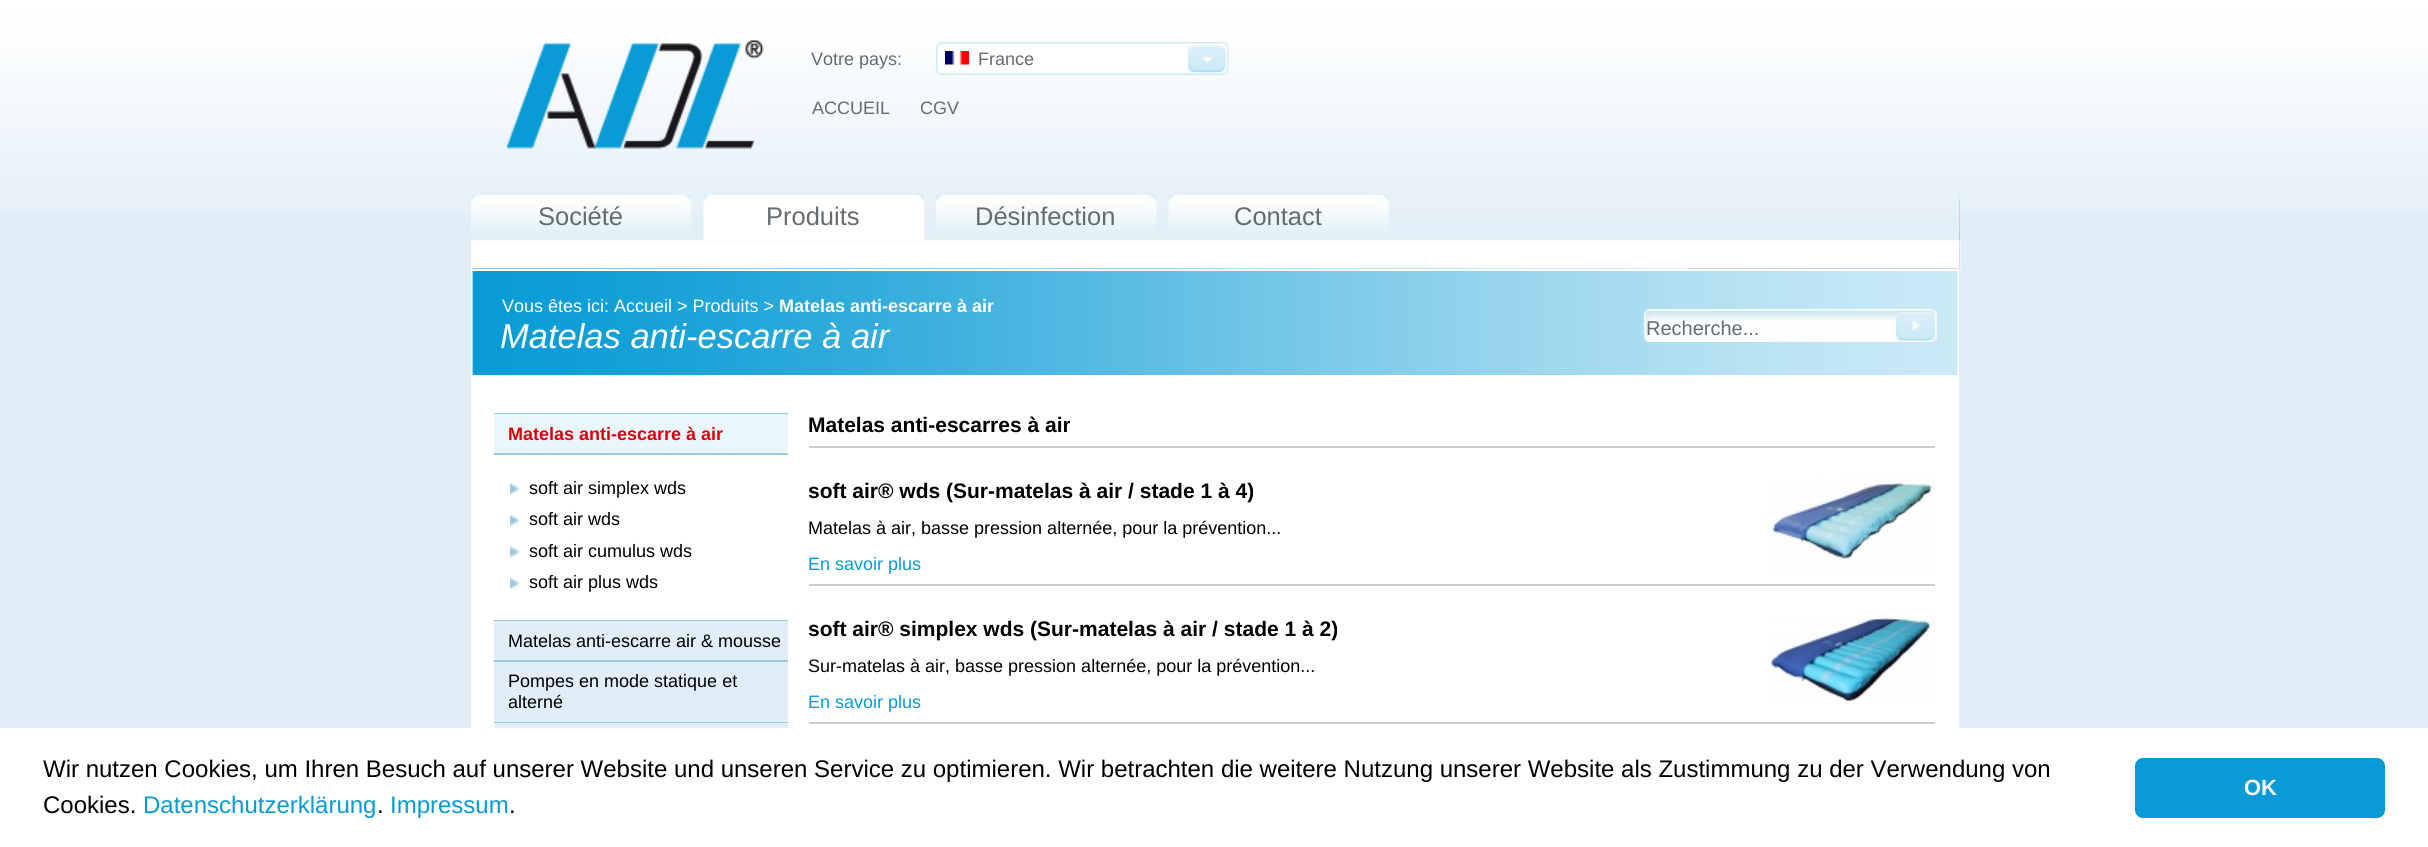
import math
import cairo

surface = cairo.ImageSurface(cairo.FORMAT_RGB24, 2428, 847)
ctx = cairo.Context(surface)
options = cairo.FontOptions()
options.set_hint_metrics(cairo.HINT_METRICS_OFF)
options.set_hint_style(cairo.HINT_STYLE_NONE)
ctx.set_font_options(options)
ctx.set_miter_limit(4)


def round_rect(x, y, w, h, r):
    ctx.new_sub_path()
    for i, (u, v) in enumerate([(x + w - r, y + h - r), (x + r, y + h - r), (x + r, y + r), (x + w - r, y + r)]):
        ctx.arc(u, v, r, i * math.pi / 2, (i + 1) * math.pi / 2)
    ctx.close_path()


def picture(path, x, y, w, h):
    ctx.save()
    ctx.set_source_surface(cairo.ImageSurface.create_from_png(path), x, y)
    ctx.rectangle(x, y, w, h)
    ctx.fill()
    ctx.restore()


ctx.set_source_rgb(0.882, 0.933, 0.969)
ctx.paint()
picture("img1.png", 0, 0, 2428, 214)
picture("img2.png", 507, 40, 257, 109)
ctx.select_font_face("Liberation Sans")
ctx.set_font_size(18)
ctx.set_source_rgb(0.396, 0.42, 0.431)
ctx.move_to(811, 65)
ctx.show_text("Votre pays:")
ctx.set_source_rgb(1, 1, 1)
ctx.rectangle(1228, 42, 1, 33)
ctx.fill()
picture("img3.png", 936, 42, 293, 33)
picture("img4.png", 945, 51, 24, 14)
ctx.set_source_rgb(0.396, 0.42, 0.431)
ctx.move_to(978, 65)
ctx.show_text("France")
ctx.move_to(812, 114)
ctx.show_text("ACCUEIL")
ctx.move_to(920, 114)
ctx.show_text("CGV")
picture("img10.png", 1633, 195, 328, 74)
picture("img5.png", 471, 195, 1488, 74)
picture("img6.png", 471, 195, 221, 45)
ctx.set_font_size(25.5)
ctx.move_to(538, 225)
ctx.show_text("Société")
picture("img7.png", 703, 195, 221, 45)
ctx.move_to(766, 225)
ctx.show_text("Produits")
picture("img8.png", 936, 195, 221, 45)
ctx.move_to(975, 225)
ctx.show_text("Désinfection")
picture("img9.png", 1168, 195, 221, 45)
ctx.move_to(1234, 225)
ctx.show_text("Contact")
picture("img11.png", 471, 268, 1488, 107)
ctx.set_source_rgb(1, 1, 1)
ctx.rectangle(471, 269, 1488, 2)
ctx.fill()
ctx.set_font_size(18)
ctx.move_to(502, 312)
ctx.show_text("Vous êtes ici: Accueil > Produits >")
ctx.select_font_face("Liberation Sans", cairo.FONT_SLANT_NORMAL, cairo.FONT_WEIGHT_BOLD)
ctx.move_to(779, 312)
ctx.show_text("Matelas anti-escarre à air")
ctx.select_font_face("Liberation Sans", cairo.FONT_SLANT_ITALIC)
ctx.set_font_size(34.5)
ctx.move_to(500, 348)
ctx.show_text("Matelas anti-escarre à air")
picture("img12.png", 1642, 309, 254, 33)
ctx.select_font_face("Liberation Sans")
ctx.set_font_size(20)
ctx.set_source_rgb(0.396, 0.42, 0.431)
ctx.move_to(1646, 335)
ctx.show_text("Recherche...")
ctx.set_source_rgb(0.937, 0.937, 0.937)
ctx.rectangle(1936, 309, 1, 33)
ctx.fill()
picture("img13.png", 1896, 309, 41, 33)
ctx.set_source_rgb(1, 1, 1)
ctx.rectangle(471, 375, 1488, 353)
ctx.fill()
ctx.set_source_rgb(0.596, 0.788, 0.863)
ctx.rectangle(494, 413, 294, 1)
ctx.fill()
ctx.set_source_rgb(0.914, 0.965, 0.98)
ctx.rectangle(494, 414, 294, 39)
ctx.fill()
ctx.set_source_rgb(0.596, 0.788, 0.863)
ctx.rectangle(494, 453, 294, 2)
ctx.fill()
ctx.select_font_face("Liberation Sans", cairo.FONT_SLANT_NORMAL, cairo.FONT_WEIGHT_BOLD)
ctx.set_font_size(18)
ctx.set_source_rgb(0.847, 0.008, 0.047)
ctx.move_to(508, 440)
ctx.show_text("Matelas anti-escarre à air")
ctx.set_source_rgb(0.596, 0.788, 0.863)
ctx.rectangle(494, 620, 294, 1)
ctx.fill()
picture("img14.png", 510, 483, 9, 12)
ctx.select_font_face("Liberation Sans")
ctx.set_source_rgb(0, 0, 0)
ctx.move_to(529, 494)
ctx.show_text("soft air simplex wds")
picture("img15.png", 510, 514, 9, 13)
ctx.move_to(529, 525)
ctx.show_text("soft air wds")
picture("img14.png", 510, 546, 9, 12)
ctx.move_to(529, 557)
ctx.show_text("soft air cumulus wds")
picture("img15.png", 510, 577, 9, 13)
ctx.move_to(529, 588)
ctx.show_text("soft air plus wds")
ctx.set_source_rgb(0.882, 0.933, 0.969)
ctx.rectangle(494, 621, 294, 39)
ctx.fill()
ctx.set_source_rgb(0.596, 0.788, 0.863)
ctx.rectangle(494, 660, 294, 2)
ctx.fill()
ctx.set_source_rgb(0, 0, 0)
ctx.move_to(508, 647)
ctx.show_text("Matelas anti-escarre air & mousse")
ctx.set_source_rgb(0.882, 0.933, 0.969)
ctx.rectangle(494, 662, 294, 60)
ctx.fill()
ctx.set_source_rgb(0.596, 0.788, 0.863)
ctx.rectangle(494, 722, 294, 1)
ctx.fill()
ctx.set_source_rgb(0, 0, 0)
ctx.move_to(508, 687)
ctx.show_text("Pompes en mode statique et")
ctx.move_to(508, 708)
ctx.show_text("alterné")
ctx.set_source_rgb(0.882, 0.933, 0.969)
ctx.rectangle(494, 723, 294, 5)
ctx.fill()
ctx.select_font_face("Liberation Sans", cairo.FONT_SLANT_NORMAL, cairo.FONT_WEIGHT_BOLD)
ctx.set_font_size(21)
ctx.set_source_rgb(0, 0, 0)
ctx.move_to(808, 432)
ctx.show_text("Matelas anti-escarres à air")
ctx.set_source_rgb(0.8, 0.8, 0.8)
ctx.rectangle(809, 446, 1126, 2)
ctx.fill()
ctx.set_source_rgb(0, 0, 0)
ctx.move_to(808, 498)
ctx.show_text("soft air® wds (Sur-matelas à air / stade 1 à 4)")
picture("img16.png", 1770, 478, 165, 94)
ctx.select_font_face("Liberation Sans")
ctx.set_font_size(18)
ctx.move_to(808, 534)
ctx.show_text("Matelas à air, basse pression alternée, pour la prévention...")
ctx.set_source_rgb(0.031, 0.608, 0.835)
ctx.move_to(808, 570)
ctx.show_text("En savoir plus")
ctx.set_source_rgb(0.8, 0.8, 0.8)
ctx.rectangle(809, 584, 1126, 2)
ctx.fill()
ctx.select_font_face("Liberation Sans", cairo.FONT_SLANT_NORMAL, cairo.FONT_WEIGHT_BOLD)
ctx.set_font_size(21)
ctx.set_source_rgb(0, 0, 0)
ctx.move_to(808, 636)
ctx.show_text("soft air® simplex wds (Sur-matelas à air / stade 1 à 2)")
picture("img17.png", 1770, 616, 165, 87)
ctx.select_font_face("Liberation Sans")
ctx.set_font_size(18)
ctx.move_to(808, 672)
ctx.show_text("Sur-matelas à air, basse pression alternée, pour la prévention...")
ctx.set_source_rgb(0.031, 0.608, 0.835)
ctx.move_to(808, 708)
ctx.show_text("En savoir plus")
ctx.set_source_rgb(0.8, 0.8, 0.8)
ctx.rectangle(809, 722, 1126, 2)
ctx.fill()
ctx.set_source_rgb(1, 1, 1)
ctx.rectangle(0, 728, 2428, 119)
ctx.fill()
ctx.set_font_size(24)
ctx.set_source_rgb(0, 0, 0)
ctx.move_to(43, 777)
ctx.show_text("Wir nutzen Cookies, um Ihren Besuch auf unserer Website und unseren Service zu optimieren. Wir betrachten die weitere Nutzung unserer Website als Zustimmung zu der Verwendung von")
ctx.move_to(43, 813)
ctx.show_text("Cookies.")
ctx.set_source_rgb(0.031, 0.608, 0.835)
ctx.move_to(143, 813)
ctx.show_text("Datenschutzerklärung")
ctx.set_source_rgb(0, 0, 0)
ctx.move_to(377, 813)
ctx.show_text(".")
ctx.set_source_rgb(0.031, 0.608, 0.835)
ctx.move_to(390, 813)
ctx.show_text("Impressum")
ctx.set_source_rgb(0, 0, 0)
ctx.move_to(509, 813)
ctx.show_text(".")
ctx.set_source_rgb(0.035, 0.608, 0.843)
round_rect(2135, 758, 250, 60, 8)
ctx.fill()
ctx.select_font_face("Liberation Sans", cairo.FONT_SLANT_NORMAL, cairo.FONT_WEIGHT_BOLD)
ctx.set_font_size(22)
ctx.set_source_rgb(1, 1, 1)
ctx.move_to(2244, 795)
ctx.show_text("OK")
surface.write_to_png("page.png")
